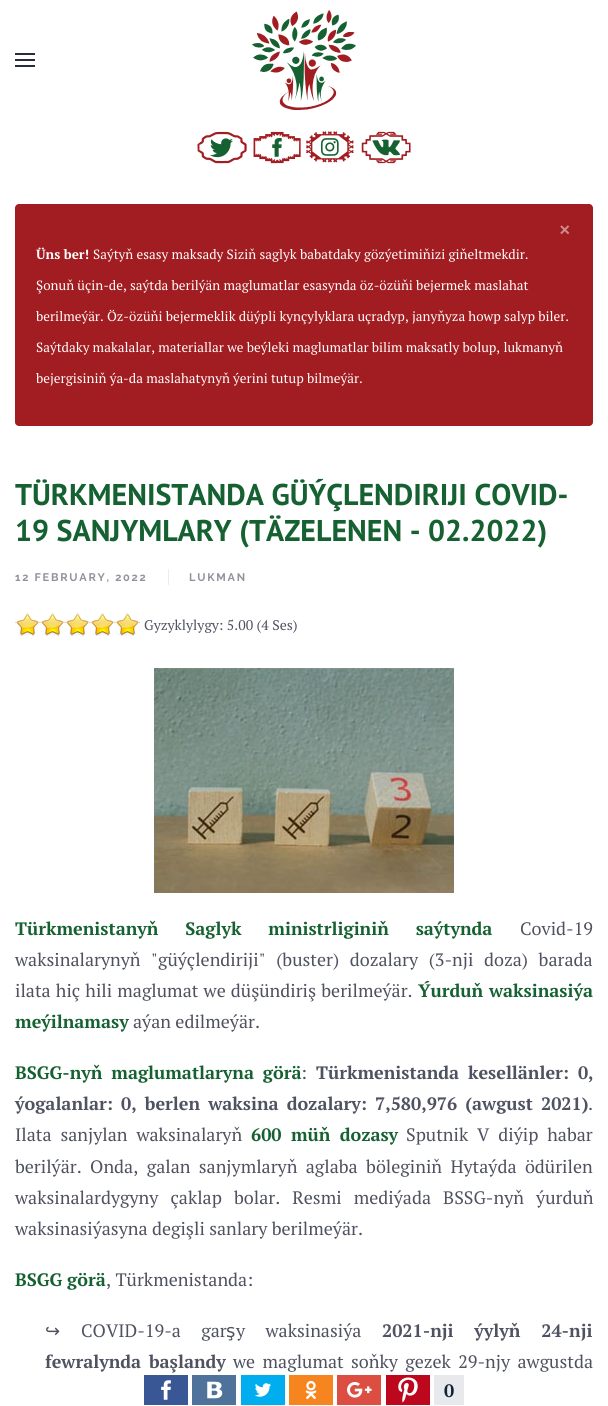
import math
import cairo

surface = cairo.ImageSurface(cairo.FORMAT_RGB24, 608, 1406)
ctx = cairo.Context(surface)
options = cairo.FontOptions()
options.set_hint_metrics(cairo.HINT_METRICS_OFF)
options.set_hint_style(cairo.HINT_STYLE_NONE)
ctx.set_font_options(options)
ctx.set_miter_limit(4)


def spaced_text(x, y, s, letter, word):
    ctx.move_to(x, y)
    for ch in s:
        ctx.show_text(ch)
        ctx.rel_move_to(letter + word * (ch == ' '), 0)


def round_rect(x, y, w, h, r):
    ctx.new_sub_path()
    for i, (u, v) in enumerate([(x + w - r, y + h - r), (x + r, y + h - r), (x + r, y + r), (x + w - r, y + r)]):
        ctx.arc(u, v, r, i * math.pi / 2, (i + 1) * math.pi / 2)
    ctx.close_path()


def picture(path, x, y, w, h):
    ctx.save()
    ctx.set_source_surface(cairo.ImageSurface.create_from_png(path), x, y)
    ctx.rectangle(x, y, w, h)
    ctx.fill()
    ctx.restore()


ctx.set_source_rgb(1, 1, 1)
ctx.paint()
ctx.set_source_rgb(0.161, 0.173, 0.239)
ctx.rectangle(15, 53, 20, 2)
ctx.fill()
ctx.rectangle(15, 59, 20, 2)
ctx.fill()
ctx.rectangle(15, 65, 20, 2)
ctx.fill()
picture("img1.png", 252, 10, 104, 100)
picture("img2.png", 197, 131, 50, 33)
picture("img3.png", 253, 131, 48, 33)
picture("img4.png", 306, 131, 48, 32)
picture("img5.png", 361, 131, 50, 33)
ctx.set_source_rgb(0.635, 0.114, 0.129)
round_rect(15, 204, 578, 222, 4)
ctx.fill()
ctx.select_font_face("PT Serif", cairo.FONT_SLANT_NORMAL, cairo.FONT_WEIGHT_BOLD)
ctx.set_font_size(24)
ctx.set_source_rgb(0.82, 0.557, 0.565)
ctx.move_to(558, 238)
ctx.show_text("×")
ctx.set_font_size(13.35)
ctx.set_source_rgb(1, 1, 1)
ctx.move_to(36, 259)
ctx.show_text("Üns ber!")
ctx.select_font_face("PT Serif")
ctx.move_to(93, 259)
ctx.show_text("Saýtyň esasy maksady Siziň saglyk babatdaky gözýetimiňizi giňeltmekdir.")
ctx.move_to(36, 290)
ctx.show_text("Şonuň üçin-de, saýtda berilýän maglumatlar esasynda öz-özüňi bejermek maslahat")
ctx.move_to(36, 321)
ctx.show_text("berilmeýär. Öz-özüňi bejermeklik düýpli kynçylyklara uçradyp, janyňyza howp salyp biler.")
ctx.move_to(36, 352)
ctx.show_text("Saýtdaky makalalar, materiallar we beýleki maglumatlar bilim maksatly bolup, lukmanyň")
ctx.move_to(36, 383)
ctx.show_text("bejergisiniň ýa-da maslahatynyň ýerini tutup bilmeýär.")
ctx.select_font_face("PT Sans", cairo.FONT_SLANT_NORMAL, cairo.FONT_WEIGHT_BOLD)
ctx.set_font_size(30)
ctx.set_source_rgb(0.086, 0.38, 0.192)
ctx.move_to(15, 505)
ctx.show_text("TÜRKMENISTANDA GÜÝÇLENDIRIJI СOVID-")
ctx.move_to(15, 541)
ctx.show_text("19 SANJYMLARY (TÄZELENEN - 02.2022)")
ctx.select_font_face("Raleway", cairo.FONT_SLANT_NORMAL, cairo.FONT_WEIGHT_BOLD)
ctx.set_font_size(11)
ctx.set_source_rgb(0.565, 0.573, 0.616)
spaced_text(15, 581, "12 FEBRUARY, 2022", 1.75, 0)
ctx.set_source_rgb(0.922, 0.922, 0.929)
ctx.rectangle(168, 569, 1, 16)
ctx.fill()
ctx.set_source_rgb(0.565, 0.573, 0.616)
spaced_text(189, 581, "LUKMAN", 1.75, 0)
picture("img6.png", 15, 613, 125, 23)
picture("img7.png", 15, 613, 125, 23)
ctx.select_font_face("PT Serif")
ctx.set_font_size(14)
ctx.set_source_rgb(0.31, 0.322, 0.376)
ctx.move_to(144, 630)
ctx.show_text("Gyzyklylygy: 5.00 (4 Ses)")
picture("img8.png", 154, 668, 300, 225)
ctx.select_font_face("PT Serif", cairo.FONT_SLANT_NORMAL, cairo.FONT_WEIGHT_BOLD)
ctx.set_font_size(18)
ctx.set_source_rgb(0.086, 0.38, 0.192)
spaced_text(15, 935, "Türkmenistanyň Saglyk ministrliginiň saýtynda", 0, 22)
ctx.select_font_face("PT Serif")
ctx.set_source_rgb(0.31, 0.322, 0.376)
ctx.move_to(520, 935)
ctx.show_text("Covid-19")
spaced_text(15, 966, "waksinalarynyň \"güýçlendiriji\" (buster) dozalary (3-nji doza) barada", 0, 6.25)
spaced_text(15, 997, "ilata hiç hili maglumat we düşündiriş berilmeýär.", 0, 0.75)
ctx.select_font_face("PT Serif", cairo.FONT_SLANT_NORMAL, cairo.FONT_WEIGHT_BOLD)
ctx.set_source_rgb(0.086, 0.38, 0.192)
spaced_text(418, 997, "Ýurduň waksinasiýa", 0, 1)
ctx.move_to(15, 1028)
ctx.show_text("meýilnamasy")
ctx.select_font_face("PT Serif")
ctx.set_source_rgb(0.31, 0.322, 0.376)
ctx.move_to(133, 1028)
ctx.show_text("aýan edilmeýär.")
ctx.select_font_face("PT Serif", cairo.FONT_SLANT_NORMAL, cairo.FONT_WEIGHT_BOLD)
ctx.set_source_rgb(0.086, 0.38, 0.192)
spaced_text(15, 1079, "BSGG-nyň maglumatlaryna görä", 0, 4)
ctx.select_font_face("PT Serif")
ctx.set_source_rgb(0.31, 0.322, 0.376)
ctx.move_to(301, 1079)
ctx.show_text(":")
ctx.select_font_face("PT Serif", cairo.FONT_SLANT_NORMAL, cairo.FONT_WEIGHT_BOLD)
spaced_text(316, 1079, "Türkmenistanda kesellänler: 0,", 0, 4)
spaced_text(15, 1110, "ýogalanlar: 0, berlen waksina dozalary: 7,580,976 (awgust 2021)", 0, 3.25)
ctx.select_font_face("PT Serif")
ctx.move_to(588, 1110)
ctx.show_text(".")
spaced_text(15, 1141, "Ilata sanjylan waksinalaryň", 0, 4.5)
ctx.select_font_face("PT Serif", cairo.FONT_SLANT_NORMAL, cairo.FONT_WEIGHT_BOLD)
ctx.set_source_rgb(0.086, 0.38, 0.192)
spaced_text(251, 1141, "600 müň dozasy", 0, 4.5)
ctx.select_font_face("PT Serif")
ctx.set_source_rgb(0.31, 0.322, 0.376)
spaced_text(406, 1141, "Sputnik V diýip habar", 0, 4.5)
spaced_text(15, 1173, "berilýär. Onda, galan sanjymlaryň aglaba böleginiň Hytaýda ödürilen", 0, 4)
spaced_text(15, 1204, "waksinalardygyny çaklap bolar. Resmi mediýada BSSG-nyň ýurduň", 0, 7.75)
ctx.move_to(15, 1235)
ctx.show_text("waksinasiýasyna degişli sanlary berilmeýär.")
ctx.select_font_face("PT Serif", cairo.FONT_SLANT_NORMAL, cairo.FONT_WEIGHT_BOLD)
ctx.set_source_rgb(0.086, 0.38, 0.192)
ctx.move_to(15, 1286)
ctx.show_text("BSGG görä")
ctx.select_font_face("PT Serif")
ctx.set_source_rgb(0.31, 0.322, 0.376)
ctx.move_to(106, 1286)
ctx.show_text(", Türkmenistanda:")
ctx.select_font_face("DejaVu Sans")
ctx.move_to(45, 1337)
ctx.show_text("↪")
ctx.select_font_face("PT Serif")
spaced_text(81, 1337, "COVID-19-a gar", 0, 16)
ctx.select_font_face("DejaVu Sans")
ctx.move_to(226, 1337)
ctx.show_text("ş")
ctx.select_font_face("PT Serif")
spaced_text(236, 1337, "y waksinasiýa", 0, 16)
ctx.select_font_face("PT Serif", cairo.FONT_SLANT_NORMAL, cairo.FONT_WEIGHT_BOLD)
spaced_text(382, 1337, "2021-nji ýylyň 24-nji", 0, 16)
spaced_text(45, 1368, "fewralynda başlandy", 0, 3)
ctx.select_font_face("PT Serif")
spaced_text(233, 1368, "we maglumat soňky gezek 29-njy awgustda", 0, 3)
ctx.set_source_rgb(0.227, 0.341, 0.584)
ctx.rectangle(144, 1375, 44, 30)
ctx.fill()
picture("img9.png", 161, 1380, 10, 20)
ctx.set_source_rgb(0.306, 0.447, 0.6)
ctx.rectangle(192, 1375, 44, 30)
ctx.fill()
picture("img10.png", 207, 1381, 16, 18)
ctx.set_source_rgb(0, 0.682, 0.937)
ctx.rectangle(241, 1375, 44, 30)
ctx.fill()
picture("img11.png", 254, 1383, 17, 14)
ctx.set_source_rgb(0.965, 0.522, 0.122)
ctx.rectangle(289, 1375, 44, 30)
ctx.fill()
picture("img12.png", 305, 1380, 12, 20)
ctx.set_source_rgb(0.863, 0.306, 0.255)
ctx.rectangle(337, 1375, 44, 30)
ctx.fill()
picture("img13.png", 347, 1382, 25, 16)
ctx.set_source_rgb(0.741, 0.031, 0.11)
ctx.rectangle(386, 1375, 44, 30)
ctx.fill()
picture("img14.png", 398, 1377, 20, 26)
ctx.set_source_rgb(0.906, 0.914, 0.922)
ctx.rectangle(434, 1375, 30, 30)
ctx.fill()
ctx.select_font_face("PT Serif", cairo.FONT_SLANT_NORMAL, cairo.FONT_WEIGHT_BOLD)
ctx.set_source_rgb(0.071, 0.137, 0.204)
ctx.move_to(444, 1397)
ctx.show_text("0")
surface.write_to_png("page.png")
